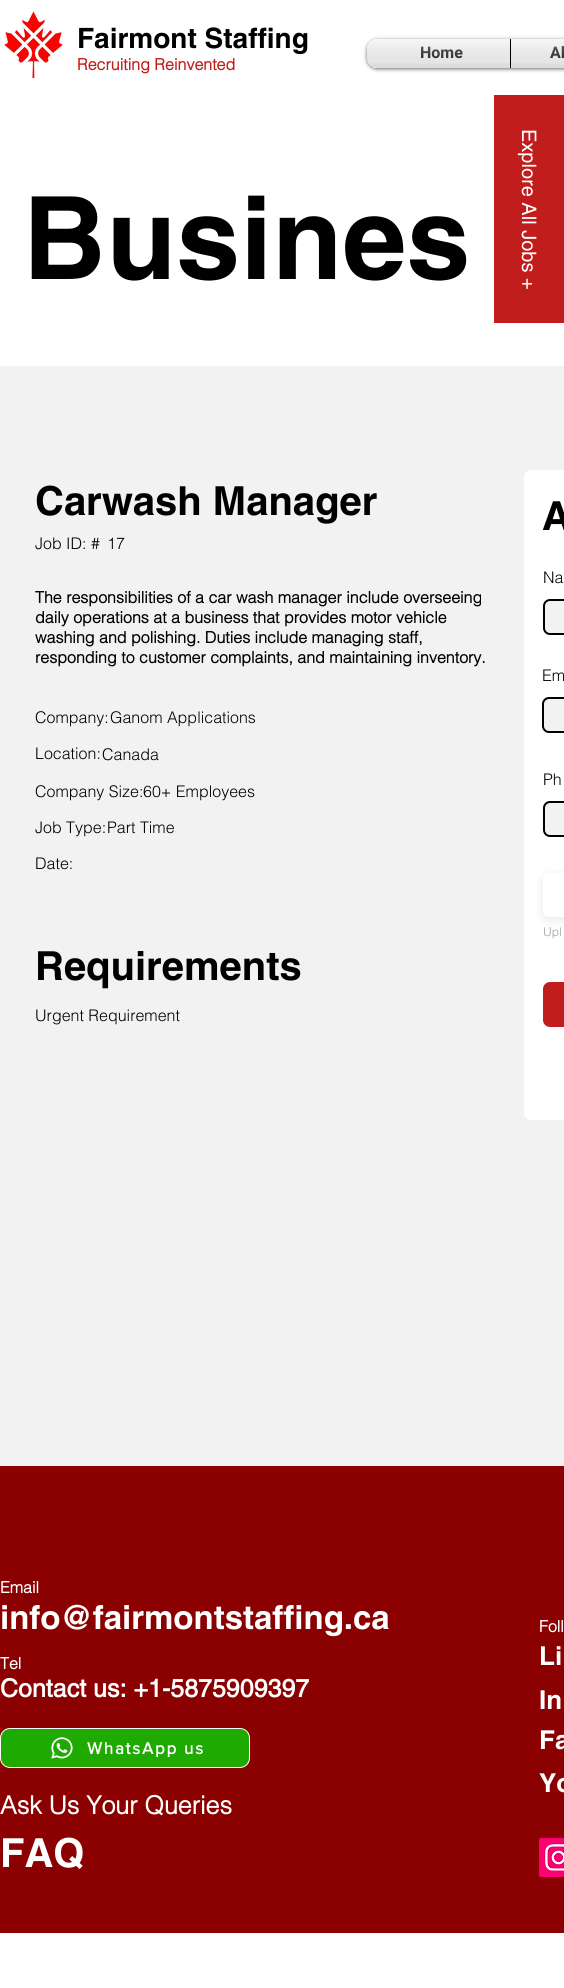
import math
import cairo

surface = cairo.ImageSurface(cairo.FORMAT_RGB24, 564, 1988)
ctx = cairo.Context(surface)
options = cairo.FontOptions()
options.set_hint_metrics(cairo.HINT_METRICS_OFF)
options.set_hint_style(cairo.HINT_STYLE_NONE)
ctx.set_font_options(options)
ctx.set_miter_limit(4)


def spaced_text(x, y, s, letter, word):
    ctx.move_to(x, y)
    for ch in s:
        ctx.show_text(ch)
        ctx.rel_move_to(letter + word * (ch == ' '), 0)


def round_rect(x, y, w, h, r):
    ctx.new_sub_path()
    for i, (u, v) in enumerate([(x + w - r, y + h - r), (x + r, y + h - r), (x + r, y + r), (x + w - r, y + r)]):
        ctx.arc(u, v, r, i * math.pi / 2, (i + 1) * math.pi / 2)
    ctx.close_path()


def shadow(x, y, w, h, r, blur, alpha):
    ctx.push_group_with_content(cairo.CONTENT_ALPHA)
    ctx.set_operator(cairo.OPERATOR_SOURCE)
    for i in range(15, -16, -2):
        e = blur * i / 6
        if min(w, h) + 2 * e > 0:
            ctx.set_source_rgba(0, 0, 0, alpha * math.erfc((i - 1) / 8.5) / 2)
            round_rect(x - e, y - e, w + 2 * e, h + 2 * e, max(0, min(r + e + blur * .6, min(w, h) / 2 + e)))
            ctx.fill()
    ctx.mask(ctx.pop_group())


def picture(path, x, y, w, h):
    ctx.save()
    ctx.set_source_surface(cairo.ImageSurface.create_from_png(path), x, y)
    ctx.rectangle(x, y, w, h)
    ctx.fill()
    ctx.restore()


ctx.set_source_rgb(1, 1, 1)
ctx.paint()
picture("img1.png", 4, 11, 59, 67)
ctx.select_font_face("helvetica", cairo.FONT_SLANT_NORMAL, cairo.FONT_WEIGHT_BOLD)
ctx.set_font_size(28)
ctx.set_source_rgb(0, 0, 0)
ctx.move_to(77, 48)
ctx.show_text("Fairmont Staffing")
ctx.select_font_face("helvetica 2", cairo.FONT_SLANT_NORMAL, cairo.FONT_WEIGHT_BOLD)
ctx.set_font_size(16)
ctx.set_source_rgb(0.757, 0.114, 0.114)
ctx.move_to(77, 70)
ctx.show_text("Recruiting Reinvented")
ctx.set_source_rgb(0, 0, 0)
shadow(367, 40, 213, 29, 10, 2, 0.6)
ctx.set_source_rgb(1, 1, 1)
round_rect(367, 39, 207, 29, 10)
ctx.fill()
picture("img2.png", 367, 39, 10, 29)
ctx.save()
round_rect(367, 39, 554, 29, 10)
ctx.clip()
ctx.rectangle(373, 39, 137, 29)
ctx.fill()
ctx.restore()
ctx.select_font_face("Heebo", cairo.FONT_SLANT_NORMAL, cairo.FONT_WEIGHT_BOLD)
ctx.set_source_rgb(0, 0, 0)
ctx.move_to(420, 58)
ctx.show_text("Home")
picture("img3.png", 421, 46, 42, 13)
picture("img4.png", 373, 39, 137, 29)
ctx.rectangle(510, 39, 1, 29)
ctx.fill()
ctx.move_to(550, 58)
ctx.show_text("Al")
picture("img5.png", 550, 46, 14, 12)
picture("img6.png", 511, 39, 53, 29)
ctx.set_source_rgb(0.757, 0.114, 0.114)
ctx.rectangle(494, 95, 70, 228)
ctx.fill()
ctx.select_font_face("helvetica")
ctx.set_font_size(20)
ctx.set_source_rgb(1, 1, 1)
ctx.save()
ctx.translate(522, 129)
ctx.rotate(90 * math.pi / 180)
ctx.move_to(0, 0)
ctx.show_text("Explore All Jobs +")
ctx.restore()
ctx.select_font_face("helvetica", cairo.FONT_SLANT_NORMAL, cairo.FONT_WEIGHT_BOLD)
ctx.set_font_size(115)
ctx.set_source_rgb(0, 0, 0)
ctx.move_to(23, 279)
ctx.show_text("Busines")
ctx.set_source_rgb(0.949, 0.949, 0.949)
ctx.rectangle(0, 366, 564, 1100)
ctx.fill()
ctx.set_font_size(40)
ctx.set_source_rgb(0, 0, 0)
ctx.move_to(35, 515)
ctx.show_text("Carwash Manager")
ctx.select_font_face("helvetica Light")
ctx.set_font_size(16)
ctx.move_to(35, 549)
ctx.show_text("Job ID: #")
ctx.move_to(107, 549)
ctx.show_text("17")
ctx.select_font_face("helvetica 2", cairo.FONT_SLANT_NORMAL, cairo.FONT_WEIGHT_BOLD)
ctx.move_to(35, 603)
ctx.show_text("The responsibilities of a car wash manager include overseeing")
ctx.move_to(35, 623)
ctx.show_text("daily operations at a business that provides motor vehicle")
ctx.move_to(35, 643)
ctx.show_text("washing and polishing. Duties include managing staff,")
ctx.move_to(35, 663)
ctx.show_text("responding to customer complaints, and maintaining inventory.")
ctx.select_font_face("helvetica Light")
ctx.move_to(35, 723)
ctx.show_text("Company:")
ctx.move_to(110, 723)
ctx.show_text("Ganom Applications")
ctx.move_to(35, 759)
ctx.show_text("Location:")
ctx.move_to(102, 760)
ctx.show_text("Canada")
ctx.move_to(35, 797)
ctx.show_text("Company Size:")
ctx.move_to(143, 797)
ctx.show_text("60+ Employees")
ctx.move_to(35, 833)
ctx.show_text("Job Type:")
ctx.move_to(107, 833)
ctx.show_text("Part Time")
ctx.move_to(35, 869)
ctx.show_text("Date:")
ctx.select_font_face("helvetica", cairo.FONT_SLANT_NORMAL, cairo.FONT_WEIGHT_BOLD)
ctx.set_font_size(40)
ctx.move_to(35, 980)
ctx.show_text("Requirements")
ctx.select_font_face("helvetica Light")
ctx.set_font_size(16)
ctx.move_to(35, 1021)
ctx.show_text("Urgent Requirement")
ctx.set_source_rgb(1, 1, 1)
round_rect(524, 470, 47, 650, 7)
ctx.fill()
ctx.select_font_face("helvetica", cairo.FONT_SLANT_NORMAL, cairo.FONT_WEIGHT_BOLD)
ctx.set_font_size(40)
ctx.set_source_rgb(0, 0, 0)
ctx.move_to(542, 530)
ctx.show_text("A")
ctx.select_font_face("helvetica Light")
ctx.set_font_size(16)
ctx.move_to(543, 583)
ctx.show_text("Na")
ctx.set_source_rgb(0.949, 0.949, 0.949)
round_rect(544, 600, 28, 34, 6)
ctx.fill_preserve()
ctx.set_source_rgb(0, 0, 0)
ctx.stroke()
ctx.move_to(542, 681)
ctx.show_text("Em")
ctx.set_source_rgb(0.949, 0.949, 0.949)
round_rect(543, 698, 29, 34, 6)
ctx.fill_preserve()
ctx.set_source_rgb(0, 0, 0)
ctx.stroke()
ctx.move_to(543, 785)
ctx.show_text("Ph")
ctx.set_source_rgb(0.949, 0.949, 0.949)
round_rect(544, 802, 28, 34, 6)
ctx.fill_preserve()
ctx.set_source_rgb(0, 0, 0)
ctx.stroke()
ctx.set_source_rgb(0, 0, 0)
shadow(542, 875, 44, 46, 7, 5, 0.08)
ctx.set_source_rgb(1, 1, 1)
round_rect(543, 873, 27, 44, 6)
ctx.fill()
ctx.set_font_size(12)
ctx.set_source_rgb(0.616, 0.616, 0.616)
ctx.move_to(543, 936)
ctx.show_text("Upl")
ctx.set_source_rgb(0.757, 0.114, 0.114)
round_rect(543, 982, 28, 45, 7)
ctx.fill()
ctx.set_source_rgb(0.545, 0, 0)
ctx.rectangle(0, 1466, 564, 467)
ctx.fill()
ctx.select_font_face("helvetica 2", cairo.FONT_SLANT_NORMAL, cairo.FONT_WEIGHT_BOLD)
ctx.set_font_size(16)
ctx.set_source_rgb(1, 1, 1)
ctx.move_to(0, 1593)
ctx.show_text("Email")
ctx.select_font_face("helvetica", cairo.FONT_SLANT_NORMAL, cairo.FONT_WEIGHT_BOLD)
ctx.set_font_size(33)
ctx.move_to(0, 1629)
ctx.show_text("info@fairmontstaffing.ca")
ctx.select_font_face("helvetica 2", cairo.FONT_SLANT_NORMAL, cairo.FONT_WEIGHT_BOLD)
ctx.set_font_size(16)
ctx.move_to(0, 1669)
ctx.show_text("Tel")
ctx.select_font_face("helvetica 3", cairo.FONT_SLANT_NORMAL, cairo.FONT_WEIGHT_BOLD)
ctx.set_font_size(25)
ctx.move_to(0, 1697)
ctx.show_text("Contact us: +1-5875909397")
ctx.set_source_rgb(0.122, 0.667, 0.008)
round_rect(0.5, 1728.5, 249, 39, 9.5)
ctx.fill_preserve()
ctx.set_source_rgb(1, 1, 1)
ctx.set_line_width(1)
ctx.stroke()
picture("img7.png", 51, 1737, 22, 22)
ctx.save()
ctx.rectangle(87, 1739, 117, 18)
ctx.clip()
ctx.select_font_face("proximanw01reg", cairo.FONT_SLANT_NORMAL, cairo.FONT_WEIGHT_BOLD)
ctx.set_font_size(17)
spaced_text(87, 1754, "WhatsApp us", 1.75, 0)
ctx.restore()
ctx.select_font_face("helvetica 2", cairo.FONT_SLANT_NORMAL, cairo.FONT_WEIGHT_BOLD)
ctx.move_to(0, 1814)
ctx.show_text("Ask Us Your Queries")
ctx.select_font_face("helvetica", cairo.FONT_SLANT_NORMAL, cairo.FONT_WEIGHT_BOLD)
ctx.set_font_size(40)
ctx.move_to(0, 1867)
ctx.show_text("FAQ")
ctx.select_font_face("helvetica 2", cairo.FONT_SLANT_NORMAL, cairo.FONT_WEIGHT_BOLD)
ctx.set_font_size(16)
ctx.move_to(539, 1632)
ctx.show_text("Foll")
ctx.select_font_face("helvetica", cairo.FONT_SLANT_NORMAL, cairo.FONT_WEIGHT_BOLD)
ctx.set_font_size(26)
ctx.move_to(539, 1665)
ctx.show_text("Li")
ctx.move_to(539, 1709)
ctx.show_text("In")
ctx.move_to(539, 1749)
ctx.show_text("Fa")
ctx.move_to(539, 1792)
ctx.show_text("Yo")
picture("img8.png", 539, 1838, 25, 39)
surface.write_to_png("page.png")
